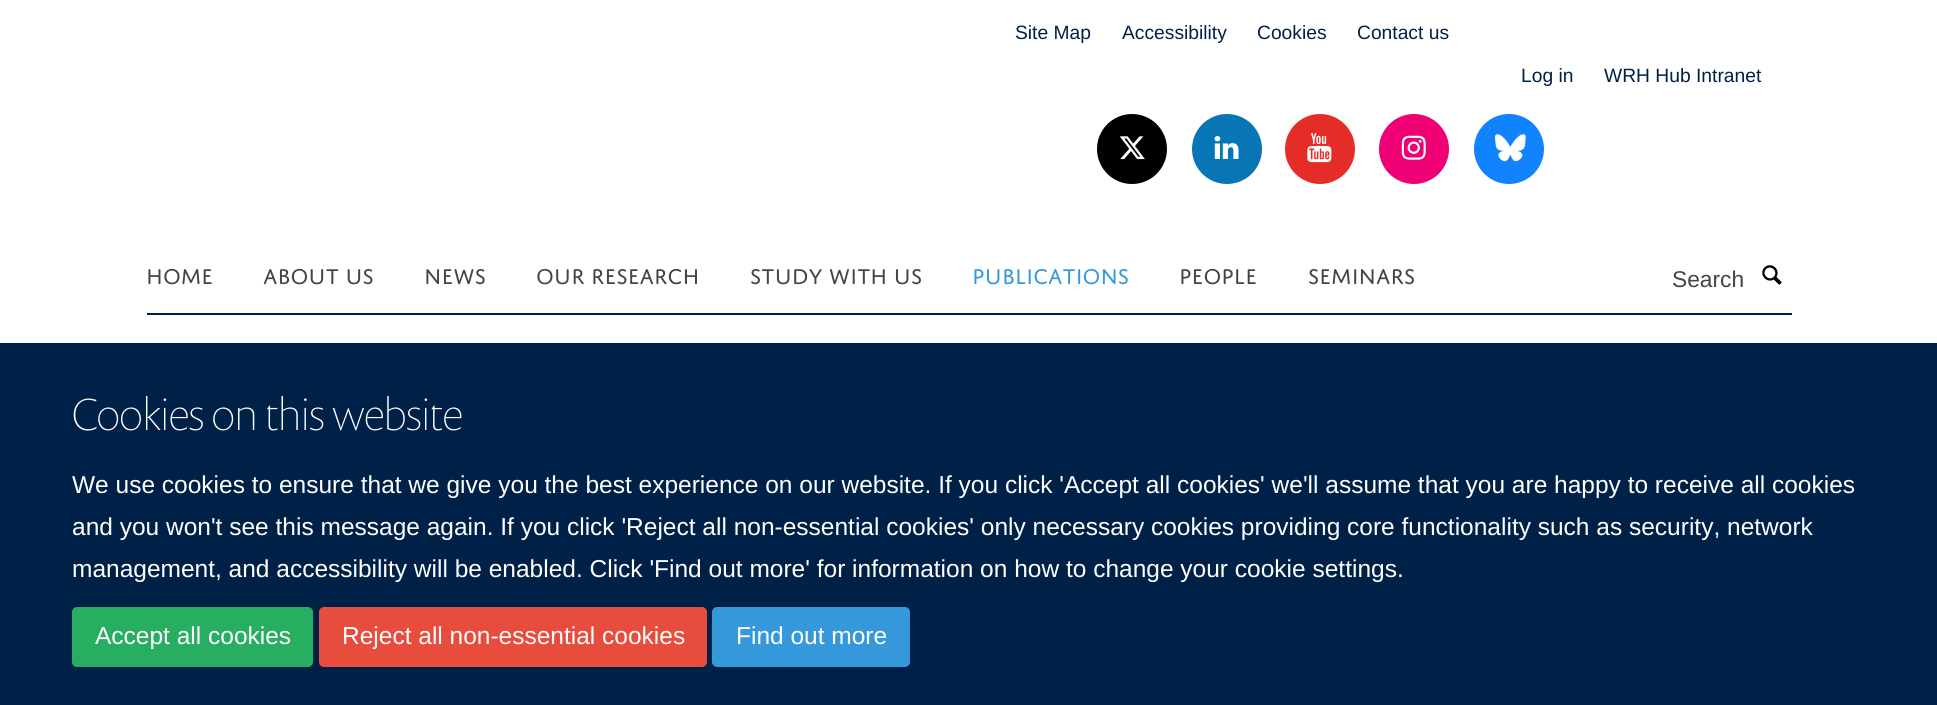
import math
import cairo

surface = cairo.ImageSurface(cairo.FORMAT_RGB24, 1937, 705)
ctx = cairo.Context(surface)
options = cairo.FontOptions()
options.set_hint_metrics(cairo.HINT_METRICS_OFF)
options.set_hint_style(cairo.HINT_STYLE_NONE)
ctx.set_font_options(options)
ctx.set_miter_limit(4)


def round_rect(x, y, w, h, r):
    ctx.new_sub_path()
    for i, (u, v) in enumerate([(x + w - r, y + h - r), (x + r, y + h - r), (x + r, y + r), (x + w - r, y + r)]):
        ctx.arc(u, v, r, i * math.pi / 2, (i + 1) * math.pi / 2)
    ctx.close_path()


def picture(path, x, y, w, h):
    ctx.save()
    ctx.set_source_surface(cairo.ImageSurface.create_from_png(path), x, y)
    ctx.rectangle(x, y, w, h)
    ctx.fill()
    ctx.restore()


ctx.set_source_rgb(1, 1, 1)
ctx.paint()
ctx.select_font_face("Liberation Sans")
ctx.set_font_size(19.25)
ctx.set_source_rgb(0, 0.129, 0.278)
ctx.move_to(1015, 39)
ctx.show_text("Site Map")
ctx.move_to(1122, 39)
ctx.show_text("Accessibility")
ctx.move_to(1257, 39)
ctx.show_text("Cookies")
ctx.move_to(1357, 39)
ctx.show_text("Contact us")
ctx.move_to(1521, 82)
ctx.show_text("Log in")
ctx.move_to(1604, 82)
ctx.show_text("WRH Hub Intranet")
ctx.set_source_rgb(0, 0, 0)
ctx.new_path()
ctx.arc(1132, 149, 35, 0, 2 * math.pi)
ctx.fill()
picture("img1.png", 1119, 136, 26, 24)
ctx.set_source_rgb(0.035, 0.463, 0.706)
ctx.arc(1227, 149, 35, 0, 2 * math.pi)
ctx.fill()
picture("img2.png", 1214, 136, 25, 23)
ctx.set_source_rgb(0.898, 0.176, 0.153)
ctx.arc(1320, 149, 35, 0, 2 * math.pi)
ctx.fill()
picture("img3.png", 1307, 133, 25, 30)
ctx.set_source_rgb(0.937, 0, 0.455)
ctx.arc(1414, 149, 35, 0, 2 * math.pi)
ctx.fill()
picture("img4.png", 1401, 135, 25, 25)
ctx.set_source_rgb(0.067, 0.514, 0.988)
ctx.arc(1509, 149, 35, 0, 2 * math.pi)
ctx.fill()
picture("img5.png", 1495, 134, 31, 28)
ctx.set_source_rgb(0, 0.129, 0.278)
ctx.rectangle(147, 313, 1645, 2)
ctx.fill()
ctx.select_font_face("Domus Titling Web")
ctx.set_font_size(22.75)
ctx.set_source_rgb(0.267, 0.267, 0.267)
ctx.move_to(146, 284)
ctx.show_text("HOME")
ctx.move_to(263, 284)
ctx.show_text("ABOUT US")
ctx.move_to(424, 284)
ctx.show_text("NEWS")
ctx.move_to(536, 284)
ctx.show_text("OUR RESEARCH")
ctx.move_to(750, 284)
ctx.show_text("STUDY WITH US")
ctx.set_source_rgb(0.204, 0.596, 0.859)
ctx.move_to(972, 284)
ctx.show_text("PUBLICATIONS")
ctx.set_source_rgb(0.267, 0.267, 0.267)
ctx.move_to(1179, 284)
ctx.show_text("PEOPLE")
ctx.move_to(1308, 284)
ctx.show_text("SEMINARS")
ctx.select_font_face("Liberation Sans")
ctx.move_to(1672, 287)
ctx.show_text("Search")
picture("img6.png", 1762, 265, 20, 20)
ctx.set_source_rgb(0, 0.129, 0.278)
ctx.rectangle(0, 343, 1937, 362)
ctx.fill()
ctx.select_font_face("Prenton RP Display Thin")
ctx.set_font_size(45.5)
ctx.set_source_rgb(1, 1, 1)
ctx.move_to(72, 430)
ctx.show_text("Cookies on this website")
ctx.select_font_face("Liberation Sans")
ctx.set_font_size(24.5)
ctx.move_to(72, 493)
ctx.show_text("We use cookies to ensure that we give you the best experience on our website. If you click 'Accept all cookies' we'll assume that you are happy to receive all cookies")
ctx.move_to(72, 535)
ctx.show_text("and you won't see this message again. If you click 'Reject all non-essential cookies' only necessary cookies providing core functionality such as security, network")
ctx.move_to(72, 577)
ctx.show_text("management, and accessibility will be enabled. Click 'Find out more' for information on how to change your cookie settings.")
ctx.set_source_rgb(0.153, 0.682, 0.376)
round_rect(73, 608, 239, 58, 4)
ctx.fill_preserve()
ctx.stroke()
ctx.set_source_rgb(1, 1, 1)
ctx.move_to(95, 644)
ctx.show_text("Accept all cookies")
ctx.set_source_rgb(0.906, 0.298, 0.235)
round_rect(320, 608, 386, 58, 4)
ctx.fill_preserve()
ctx.stroke()
ctx.set_source_rgb(1, 1, 1)
ctx.move_to(342, 644)
ctx.show_text("Reject all non-essential cookies")
ctx.set_source_rgb(0.204, 0.596, 0.859)
round_rect(713, 608, 196, 58, 4)
ctx.fill_preserve()
ctx.stroke()
ctx.set_source_rgb(1, 1, 1)
ctx.move_to(736, 644)
ctx.show_text("Find out more")
surface.write_to_png("page.png")
